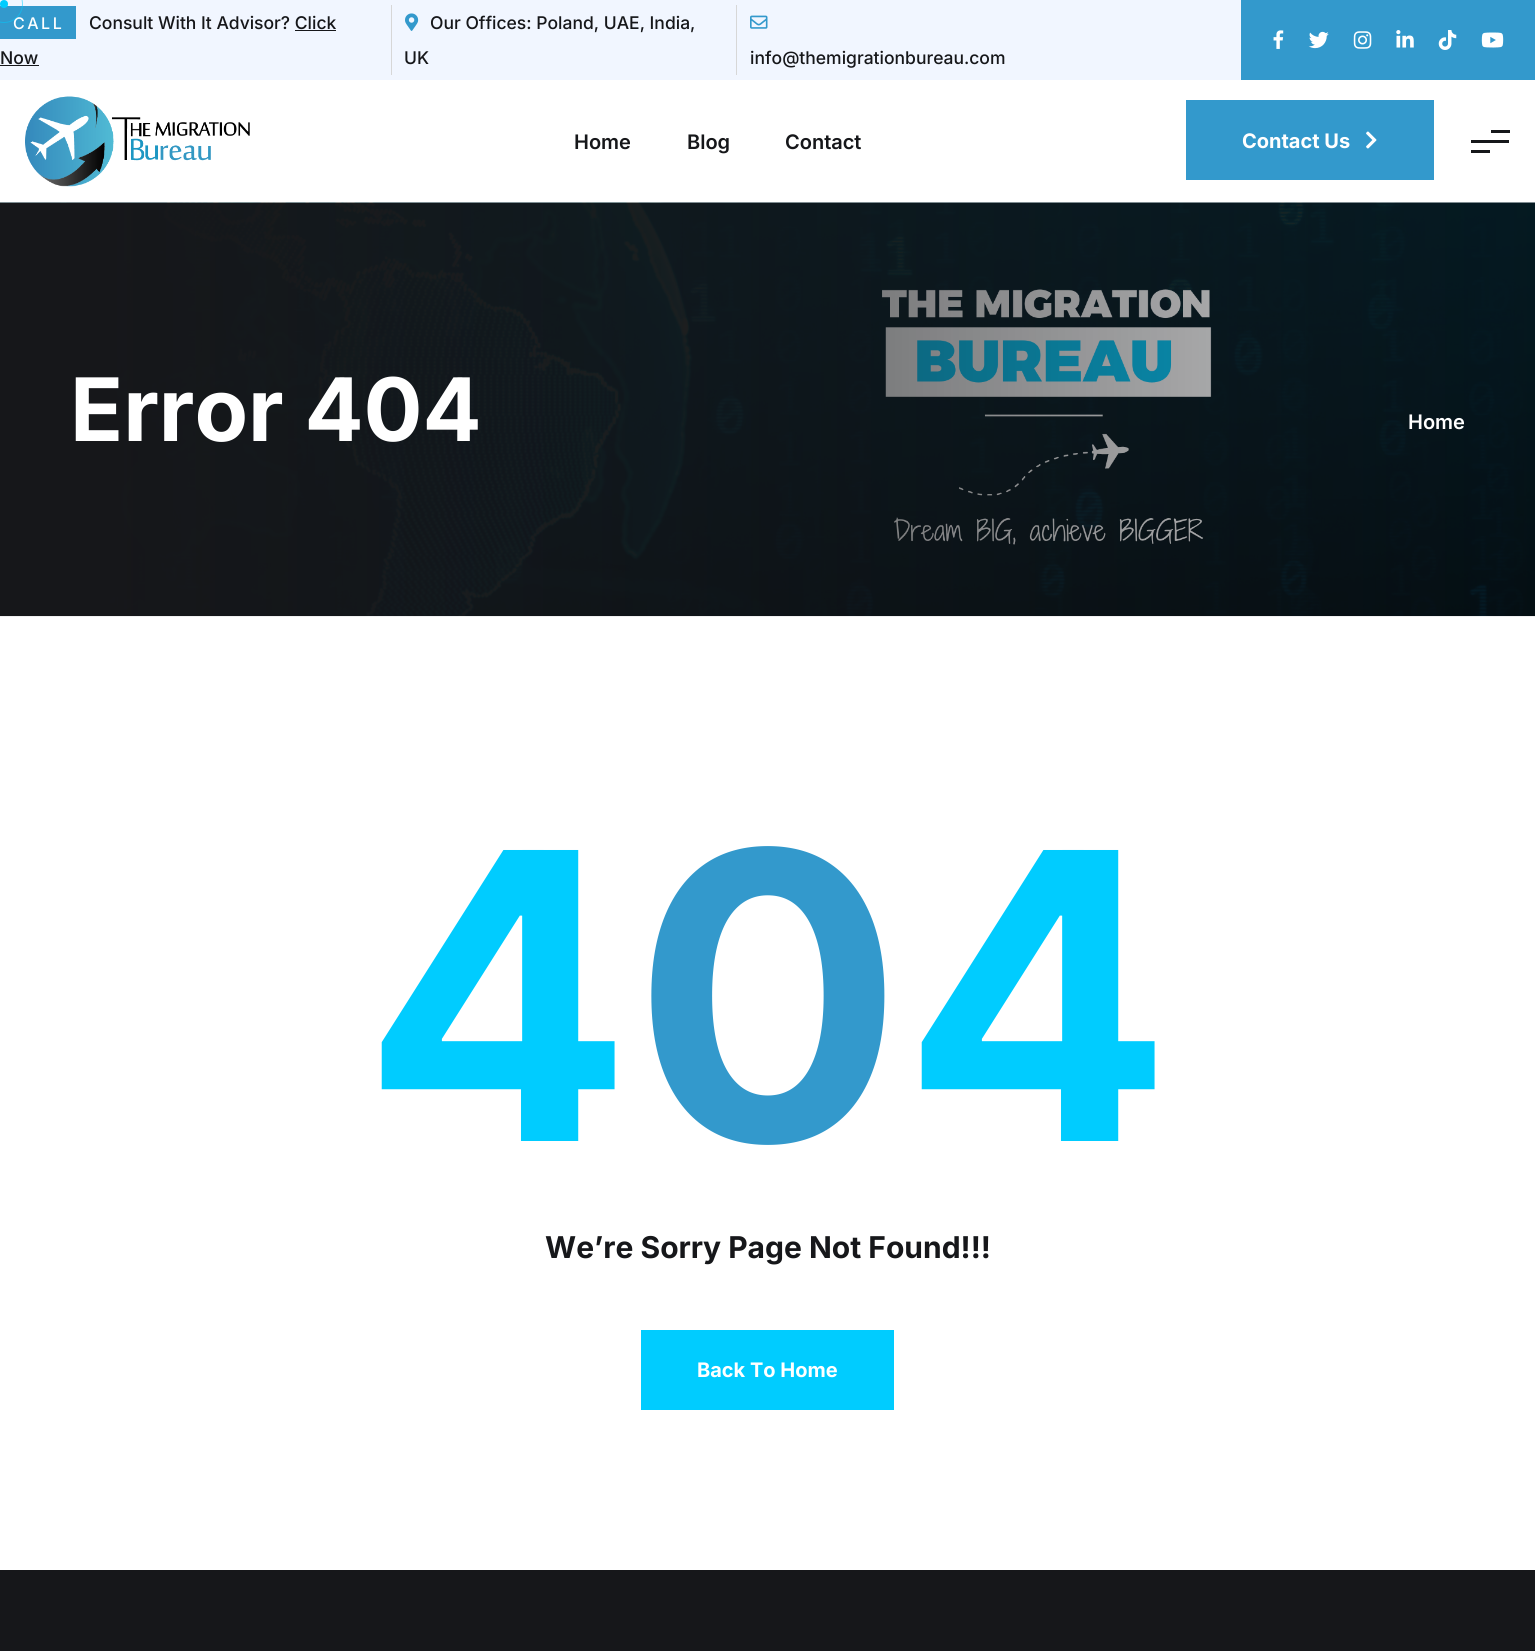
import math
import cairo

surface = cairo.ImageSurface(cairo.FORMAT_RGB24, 1535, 1651)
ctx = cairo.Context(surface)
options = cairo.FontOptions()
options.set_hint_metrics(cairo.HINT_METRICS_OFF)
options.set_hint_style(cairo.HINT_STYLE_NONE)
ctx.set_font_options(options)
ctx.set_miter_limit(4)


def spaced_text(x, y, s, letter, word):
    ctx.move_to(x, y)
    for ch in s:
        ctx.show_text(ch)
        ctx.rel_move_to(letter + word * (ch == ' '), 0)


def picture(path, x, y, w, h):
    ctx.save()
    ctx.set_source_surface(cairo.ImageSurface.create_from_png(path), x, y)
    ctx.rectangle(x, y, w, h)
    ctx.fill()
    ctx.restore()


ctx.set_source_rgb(1, 1, 1)
ctx.paint()
ctx.set_source_rgb(0.945, 0.961, 1)
ctx.rectangle(0, 0, 1241, 80)
ctx.fill()
ctx.set_source_rgb(0.2, 0.6, 0.8)
ctx.rectangle(0, 6, 76, 33)
ctx.fill()
ctx.select_font_face("Inter Medium")
ctx.set_font_size(16)
ctx.set_source_rgb(1, 1, 1)
spaced_text(13, 29, "CALL", 2.5, 0)
ctx.new_path()
ctx.arc(4, 4, 18.5, 0, 2 * math.pi)
ctx.set_source_rgba(0, 0.8, 1, 0.5)
ctx.set_line_width(1)
ctx.stroke()
ctx.set_source_rgb(0, 0.8, 1)
ctx.arc(4, 4, 4, 0, 2 * math.pi)
ctx.fill()
ctx.set_source_rgb(0.843, 0.843, 0.843)
ctx.rectangle(391, 5, 1, 70)
ctx.fill()
ctx.set_font_size(17.5)
ctx.set_source_rgb(0.086, 0.09, 0.102)
ctx.move_to(89, 29)
ctx.show_text("Consult With It Advisor? Click")
ctx.move_to(0, 64)
ctx.show_text("Now")
ctx.rectangle(295, 30, 41, 1)
ctx.fill()
ctx.rectangle(0, 65, 39, 1)
ctx.fill()
ctx.set_source_rgb(0.843, 0.843, 0.843)
ctx.rectangle(736, 5, 1, 70)
ctx.fill()
picture("img1.png", 405, 13, 14, 18)
ctx.set_source_rgb(0.086, 0.09, 0.102)
ctx.move_to(430, 29)
ctx.show_text("Our Offices: Poland, UAE, India,")
ctx.move_to(404, 64)
ctx.show_text("UK")
picture("img2.png", 750, 15, 18, 14)
ctx.move_to(750, 64)
ctx.show_text("info@themigrationbureau.com")
ctx.set_source_rgb(0.2, 0.6, 0.8)
ctx.rectangle(1241, 0, 294, 80)
ctx.fill()
picture("img3.png", 1273, 30, 11, 19)
picture("img4.png", 1308, 31, 21, 18)
picture("img5.png", 1353, 31, 19, 18)
picture("img6.png", 1396, 30, 18, 18)
picture("img7.png", 1438, 30, 19, 20)
picture("img8.png", 1481, 32, 23, 16)
picture("img9.png", 25, 96, 225, 91)
ctx.select_font_face("Inter SemiBold")
ctx.set_font_size(20)
ctx.set_source_rgb(0.086, 0.09, 0.102)
ctx.move_to(574, 149)
ctx.show_text("Home")
ctx.move_to(687, 149)
ctx.show_text("Blog")
ctx.move_to(785, 149)
ctx.show_text("Contact")
ctx.set_source_rgb(0.2, 0.6, 0.8)
ctx.rectangle(1186, 100, 248, 80)
ctx.fill()
ctx.select_font_face("Inter", cairo.FONT_SLANT_NORMAL, cairo.FONT_WEIGHT_BOLD)
ctx.set_source_rgb(1, 1, 1)
ctx.move_to(1242, 148)
ctx.show_text("Contact Us")
picture("img10.png", 1366, 131, 11, 18)
ctx.set_source_rgb(0.086, 0.09, 0.102)
ctx.rectangle(1491, 130, 19, 3)
ctx.fill()
ctx.rectangle(1471, 140, 38, 3)
ctx.fill()
ctx.rectangle(1471, 150, 19, 3)
ctx.fill()
picture("img11.png", 0, 202, 1535, 415)
ctx.set_font_size(87.5)
ctx.set_source_rgb(1, 1, 1)
ctx.move_to(70, 441)
ctx.show_text("Error 404")
ctx.select_font_face("Inter SemiBold")
ctx.set_font_size(20)
ctx.move_to(1408, 429)
ctx.show_text("Home")
ctx.select_font_face("Inter", cairo.FONT_SLANT_NORMAL, cairo.FONT_WEIGHT_BOLD)
ctx.set_font_size(400)
ctx.set_source_rgb(0, 0.8, 1)
ctx.move_to(362, 1141)
ctx.show_text("4")
ctx.set_source_rgb(0.2, 0.6, 0.8)
ctx.move_to(633, 1141)
ctx.show_text("0")
ctx.set_source_rgb(0, 0.8, 1)
ctx.move_to(902, 1141)
ctx.show_text("4")
ctx.set_font_size(30)
ctx.set_source_rgb(0.086, 0.09, 0.102)
ctx.move_to(545, 1258)
ctx.show_text("We’re Sorry Page Not Found!!!")
ctx.set_source_rgb(0, 0.8, 1)
ctx.rectangle(641, 1330, 253, 80)
ctx.fill()
ctx.set_font_size(20)
ctx.set_source_rgb(1, 1, 1)
ctx.move_to(697, 1377)
ctx.show_text("Back To Home")
ctx.set_source_rgb(0.086, 0.09, 0.102)
ctx.rectangle(0, 1570, 1535, 81)
ctx.fill()
surface.write_to_png("page.png")
